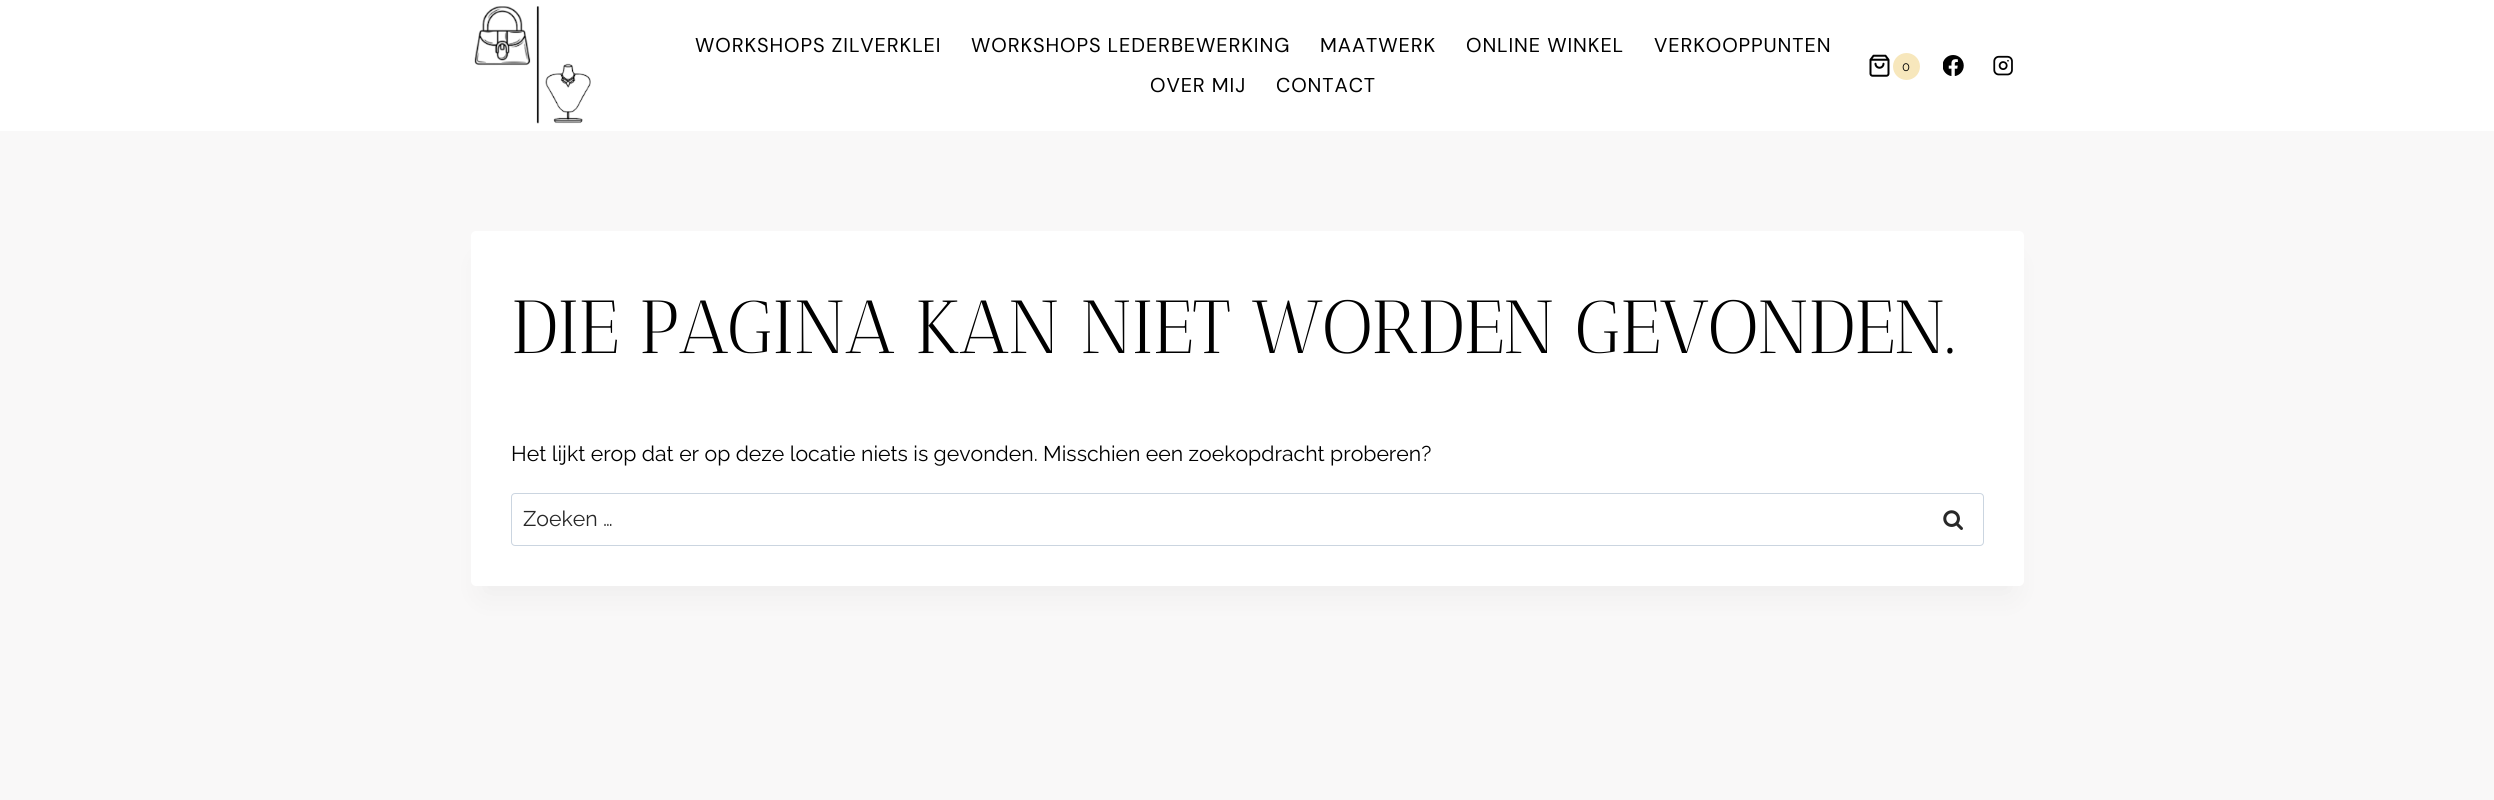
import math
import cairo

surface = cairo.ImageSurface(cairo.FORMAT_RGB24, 2494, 800)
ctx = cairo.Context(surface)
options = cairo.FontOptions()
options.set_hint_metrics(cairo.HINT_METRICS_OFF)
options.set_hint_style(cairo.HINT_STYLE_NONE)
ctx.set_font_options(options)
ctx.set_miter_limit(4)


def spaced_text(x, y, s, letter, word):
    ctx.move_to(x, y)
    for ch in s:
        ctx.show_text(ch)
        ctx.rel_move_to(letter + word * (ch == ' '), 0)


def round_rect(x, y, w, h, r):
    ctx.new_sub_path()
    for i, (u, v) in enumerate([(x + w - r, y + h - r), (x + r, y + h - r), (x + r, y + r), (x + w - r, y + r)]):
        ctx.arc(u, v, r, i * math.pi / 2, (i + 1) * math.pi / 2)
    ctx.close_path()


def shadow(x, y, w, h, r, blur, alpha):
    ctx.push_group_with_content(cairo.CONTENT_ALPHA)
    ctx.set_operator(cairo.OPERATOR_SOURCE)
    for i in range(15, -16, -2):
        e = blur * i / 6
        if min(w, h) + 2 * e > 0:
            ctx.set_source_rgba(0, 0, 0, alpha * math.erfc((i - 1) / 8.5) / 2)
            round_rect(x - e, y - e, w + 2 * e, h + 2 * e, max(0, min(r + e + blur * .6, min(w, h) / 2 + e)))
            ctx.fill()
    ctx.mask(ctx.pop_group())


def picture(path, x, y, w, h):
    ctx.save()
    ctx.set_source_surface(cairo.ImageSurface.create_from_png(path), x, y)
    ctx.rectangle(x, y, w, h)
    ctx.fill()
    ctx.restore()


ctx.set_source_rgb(0.976, 0.969, 0.969)
ctx.paint()
ctx.set_source_rgb(1, 1, 1)
ctx.rectangle(0, 0, 2494, 131)
ctx.fill()
picture("img1.png", 474, 6, 117, 118)
ctx.select_font_face("DM Sans")
ctx.set_font_size(20)
ctx.set_source_rgb(0, 0, 0)
spaced_text(695, 52, "WORKSHOPS ZILVERKLEI", 0.9, 0)
spaced_text(971, 52, "WORKSHOPS LEDERBEWERKING", 0.9, 0)
spaced_text(1320, 52, "MAATWERK", 0.9, 0)
spaced_text(1466, 52, "ONLINE WINKEL", 0.9, 0)
spaced_text(1654, 52, "VERKOOPPUNTEN", 0.9, 0)
spaced_text(1150, 92, "OVER MIJ", 0.9, 0)
spaced_text(1276, 92, "CONTACT", 0.9, 0)
picture("img2.png", 1869, 54, 21, 23)
ctx.set_source_rgb(0.965, 0.906, 0.737)
ctx.arc(1906.5, 66.5, 13.5, 0, 2 * math.pi)
ctx.fill()
ctx.select_font_face("Raleway")
ctx.set_font_size(13)
ctx.set_source_rgb(0, 0, 0)
ctx.move_to(1902, 71)
ctx.show_text("0")
picture("img3.png", 1943, 55, 21, 21)
picture("img4.png", 1993, 55, 20, 21)
ctx.set_source_rgb(0, 0, 0)
shadow(484, 263, 1527, 330, 0, 15.5, 0.05)
ctx.set_source_rgb(1, 1, 1)
round_rect(471, 231, 1553, 355, 5)
ctx.fill()
ctx.select_font_face("Antic Didone")
ctx.set_font_size(75)
ctx.set_source_rgb(0, 0, 0)
spaced_text(511, 353, "DIE PAGINA KAN NIET WORDEN GEVONDEN.", -1.25, 0)
ctx.select_font_face("Raleway")
ctx.set_font_size(21.25)
ctx.move_to(511, 461)
ctx.show_text("Het lijkt erop dat er op deze locatie niets is gevonden. Misschien een zoekopdracht proberen?")
round_rect(511.5, 493.5, 1472, 52, 3.5)
ctx.set_source_rgb(0.796, 0.835, 0.878)
ctx.set_line_width(1)
ctx.stroke()
ctx.set_source_rgb(0.157, 0.157, 0.157)
ctx.move_to(523, 526)
ctx.show_text("Zoeken …")
picture("img5.png", 1943, 510, 20, 20)
surface.write_to_png("page.png")
